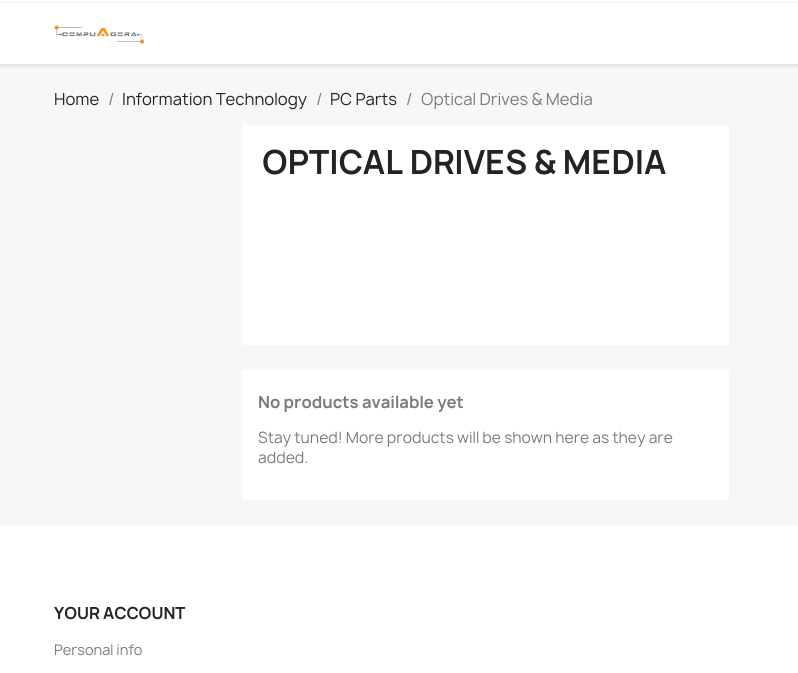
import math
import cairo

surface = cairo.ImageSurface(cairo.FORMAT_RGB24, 798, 673)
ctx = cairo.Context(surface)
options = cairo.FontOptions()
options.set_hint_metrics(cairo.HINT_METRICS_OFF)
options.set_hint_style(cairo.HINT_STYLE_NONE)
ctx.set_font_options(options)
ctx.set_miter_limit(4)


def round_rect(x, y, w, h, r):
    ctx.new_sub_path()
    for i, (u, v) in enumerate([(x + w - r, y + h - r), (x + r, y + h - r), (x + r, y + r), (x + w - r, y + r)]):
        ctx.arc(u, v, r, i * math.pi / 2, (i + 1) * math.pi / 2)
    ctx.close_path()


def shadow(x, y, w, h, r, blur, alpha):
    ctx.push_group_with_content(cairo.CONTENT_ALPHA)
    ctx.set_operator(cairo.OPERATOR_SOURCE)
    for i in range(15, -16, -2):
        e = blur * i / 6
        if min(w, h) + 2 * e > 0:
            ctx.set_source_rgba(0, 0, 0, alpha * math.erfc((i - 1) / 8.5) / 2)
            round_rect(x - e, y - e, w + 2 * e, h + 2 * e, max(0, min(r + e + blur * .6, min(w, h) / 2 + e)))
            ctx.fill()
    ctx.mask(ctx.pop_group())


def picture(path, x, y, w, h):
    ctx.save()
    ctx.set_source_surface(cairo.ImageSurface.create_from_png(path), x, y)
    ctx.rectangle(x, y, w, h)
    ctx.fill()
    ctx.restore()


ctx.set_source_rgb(1, 1, 1)
ctx.paint()
ctx.set_source_rgb(0.965, 0.965, 0.965)
ctx.rectangle(0, 64, 798, 461)
ctx.fill()
ctx.save()
ctx.rectangle(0, 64, 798, 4)
ctx.clip()
ctx.set_source_rgb(0, 0, 0)
shadow(0, 2, 798, 64, 0, 2.5, 0.11)
ctx.restore()
ctx.rectangle(0, 1, 798, 2)
ctx.fill()
picture("img1.png", 54, 25, 90, 19)
ctx.select_font_face("Manrope")
ctx.set_font_size(16)
ctx.set_source_rgb(0.137, 0.137, 0.137)
ctx.move_to(54, 105)
ctx.show_text("Home")
ctx.set_source_rgb(0.478, 0.478, 0.478)
ctx.move_to(108, 105)
ctx.show_text("/")
ctx.set_source_rgb(0.137, 0.137, 0.137)
ctx.move_to(122, 105)
ctx.show_text("Information Technology")
ctx.set_source_rgb(0.478, 0.478, 0.478)
ctx.move_to(316, 105)
ctx.show_text("/")
ctx.set_source_rgb(0.137, 0.137, 0.137)
ctx.move_to(330, 105)
ctx.show_text("PC Parts")
ctx.set_source_rgb(0.478, 0.478, 0.478)
ctx.move_to(406, 105)
ctx.show_text("/")
ctx.move_to(421, 105)
ctx.show_text("Optical Drives & Media")
ctx.set_source_rgb(1, 1, 1)
ctx.rectangle(242, 125, 487, 220)
ctx.fill()
ctx.select_font_face("Manrope", cairo.FONT_SLANT_NORMAL, cairo.FONT_WEIGHT_BOLD)
ctx.set_font_size(32)
ctx.set_source_rgb(0.137, 0.137, 0.137)
ctx.move_to(262, 174)
ctx.show_text("OPTICAL DRIVES & MEDIA")
ctx.set_source_rgb(1, 1, 1)
ctx.rectangle(242, 370, 487, 130)
ctx.fill()
ctx.set_font_size(16)
ctx.set_source_rgb(0.478, 0.478, 0.478)
ctx.move_to(258, 408)
ctx.show_text("No products available yet")
ctx.select_font_face("Manrope")
ctx.set_font_size(15)
ctx.move_to(258, 443)
ctx.show_text("Stay tuned! More products will be shown here as they are")
ctx.move_to(258, 463)
ctx.show_text("added.")
ctx.select_font_face("Manrope", cairo.FONT_SLANT_NORMAL, cairo.FONT_WEIGHT_BOLD)
ctx.set_font_size(16)
ctx.set_source_rgb(0.137, 0.137, 0.137)
ctx.move_to(54, 619)
ctx.show_text("YOUR ACCOUNT")
ctx.select_font_face("Manrope")
ctx.set_font_size(14)
ctx.set_source_rgb(0.478, 0.478, 0.478)
ctx.move_to(54, 655)
ctx.show_text("Personal info")
surface.write_to_png("page.png")
